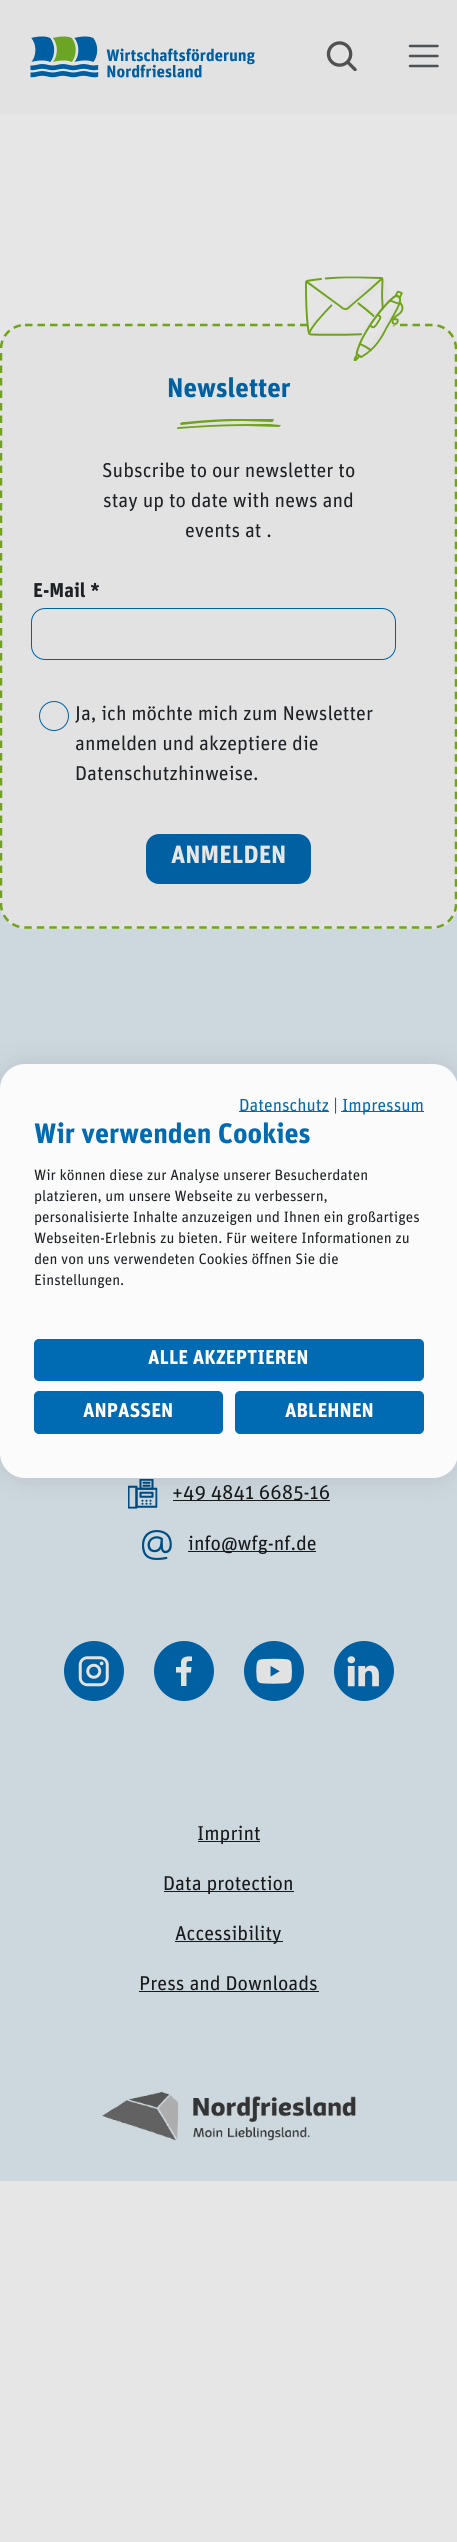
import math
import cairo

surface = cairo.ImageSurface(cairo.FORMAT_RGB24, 457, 2542)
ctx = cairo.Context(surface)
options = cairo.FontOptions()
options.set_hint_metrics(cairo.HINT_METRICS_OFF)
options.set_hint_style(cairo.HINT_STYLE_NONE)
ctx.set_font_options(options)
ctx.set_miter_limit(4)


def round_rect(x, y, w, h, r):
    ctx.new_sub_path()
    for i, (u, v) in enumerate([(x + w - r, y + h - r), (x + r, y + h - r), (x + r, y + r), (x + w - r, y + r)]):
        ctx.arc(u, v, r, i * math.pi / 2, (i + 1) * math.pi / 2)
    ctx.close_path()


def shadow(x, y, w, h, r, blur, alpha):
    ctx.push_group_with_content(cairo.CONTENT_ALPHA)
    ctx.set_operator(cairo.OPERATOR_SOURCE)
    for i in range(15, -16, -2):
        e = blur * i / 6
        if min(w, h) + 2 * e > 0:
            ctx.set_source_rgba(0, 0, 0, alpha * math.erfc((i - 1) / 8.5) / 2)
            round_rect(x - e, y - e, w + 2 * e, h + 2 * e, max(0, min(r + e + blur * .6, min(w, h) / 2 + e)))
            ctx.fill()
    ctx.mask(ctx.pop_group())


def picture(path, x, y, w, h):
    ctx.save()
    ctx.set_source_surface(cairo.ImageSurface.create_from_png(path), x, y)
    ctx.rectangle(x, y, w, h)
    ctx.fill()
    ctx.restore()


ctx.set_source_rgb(0.902, 0.902, 0.902)
ctx.paint()
ctx.set_source_rgb(0.886, 0.886, 0.886)
ctx.rectangle(0, 0, 457, 114)
ctx.fill()
picture("img1.png", 30, 36, 225, 42)
picture("img2.png", 326, 41, 31, 30)
ctx.new_path()
ctx.move_to(410, 46)
ctx.line_to(437.5, 46)
ctx.move_to(410, 56)
ctx.line_to(437.5, 56)
ctx.move_to(410, 66)
ctx.line_to(437.5, 66)
ctx.set_source_rgb(0.31, 0.322, 0.333)
ctx.set_line_width(2.5)
ctx.set_line_cap(cairo.LINE_CAP_ROUND)
ctx.stroke()
ctx.set_source_rgb(0.804, 0.843, 0.871)
ctx.new_path()
ctx.move_to(-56, 483)
ctx.curve_to(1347, 302, 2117, 348, 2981, 483)
ctx.line_to(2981, 2181)
ctx.line_to(-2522, 2181)
ctx.line_to(-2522, 483)
ctx.curve_to(-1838, 625, -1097, 618, -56, 483)
ctx.close_path()
ctx.fill()
ctx.set_source_rgb(0.886, 0.886, 0.886)
round_rect(0, 324, 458, 605, 25)
ctx.fill()
ctx.new_path()
ctx.move_to(25, 325)
ctx.line_to(432.5, 325)
ctx.curve_to(445.5, 325, 456, 335.5, 456, 349)
ctx.line_to(456, 904)
ctx.curve_to(456, 917, 445.5, 927.5, 432.5, 927.5)
ctx.line_to(25, 927.5)
ctx.curve_to(12, 927.5, 1, 917, 1, 904)
ctx.line_to(1, 349)
ctx.curve_to(1, 335.5, 12, 325, 25, 325)
ctx.close_path()
ctx.set_source_rgb(0.431, 0.639, 0.102)
ctx.set_line_cap(cairo.LINE_CAP_BUTT)
ctx.set_dash([7.5, 5])
ctx.stroke()
picture("img3.png", 305, 276, 99, 85)
ctx.select_font_face("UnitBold", cairo.FONT_SLANT_NORMAL, cairo.FONT_WEIGHT_BOLD)
ctx.set_font_size(27)
ctx.set_source_rgb(0, 0.376, 0.631)
ctx.move_to(167, 397)
ctx.show_text("Newsletter")
ctx.set_source_rgb(0.431, 0.639, 0.102)
ctx.new_path()
ctx.move_to(178, 429)
ctx.curve_to(201, 427, 224, 426, 247, 426)
ctx.line_to(279, 427)
ctx.curve_to(280, 426, 282, 425, 280, 425)
ctx.line_to(270, 424)
ctx.curve_to(250, 424, 231, 424, 211, 425)
ctx.line_to(179, 427)
ctx.curve_to(177, 427, 176, 429, 178, 429)
ctx.close_path()
ctx.fill()
ctx.save()
ctx.rectangle(176, 419, 105, 10)
ctx.clip()
ctx.new_path()
ctx.move_to(273, 419)
ctx.curve_to(243, 418, 214, 419, 185, 422)
ctx.curve_to(184, 422, 180, 422, 180, 424)
ctx.line_to(181, 425)
ctx.line_to(190, 424)
ctx.curve_to(208, 422, 226, 421, 243, 421)
ctx.line_to(272, 422)
ctx.curve_to(273, 422, 275, 419, 273, 419)
ctx.close_path()
ctx.fill()
ctx.restore()
ctx.select_font_face("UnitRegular")
ctx.set_font_size(20)
ctx.set_source_rgb(0.118, 0.129, 0.145)
ctx.move_to(102, 477)
ctx.show_text("Subscribe to our newsletter to")
ctx.move_to(103, 507)
ctx.show_text("stay up to date with news and")
ctx.move_to(185, 537)
ctx.show_text("events at .")
ctx.select_font_face("UnitBold", cairo.FONT_SLANT_NORMAL, cairo.FONT_WEIGHT_BOLD)
ctx.move_to(33, 597)
ctx.show_text("E-Mail *")
round_rect(31.5, 608.5, 364, 51, 13.5)
ctx.set_source_rgb(0, 0.376, 0.631)
ctx.set_line_width(1)
ctx.set_dash([])
ctx.stroke()
ctx.arc(54, 716, 14.5, 0, 2 * math.pi)
ctx.stroke()
ctx.select_font_face("UnitRegular")
ctx.set_source_rgb(0.118, 0.129, 0.145)
ctx.move_to(75, 720)
ctx.show_text("Ja, ich möchte mich zum Newsletter")
ctx.move_to(75, 750)
ctx.show_text("anmelden und akzeptiere die")
ctx.move_to(75, 780)
ctx.show_text("Datenschutzhinweise.")
ctx.set_source_rgb(0, 0.376, 0.631)
round_rect(146, 834, 165, 50, 13)
ctx.fill()
ctx.select_font_face("UnitBold", cairo.FONT_SLANT_NORMAL, cairo.FONT_WEIGHT_BOLD)
ctx.set_font_size(25)
ctx.set_source_rgb(0.902, 0.902, 0.902)
ctx.move_to(171, 863)
ctx.show_text("ANMELDEN")
picture("img4.png", 128, 1479, 30, 30)
ctx.set_source_rgb(0.094, 0.098, 0.106)
ctx.rectangle(173, 1500, 157, 1)
ctx.fill()
ctx.select_font_face("UnitRegular")
ctx.set_font_size(20)
ctx.move_to(172, 1499)
ctx.show_text("+49 4841 6685-16")
picture("img5.png", 142, 1530, 30, 30)
ctx.rectangle(188, 1551, 128, 1)
ctx.fill()
ctx.move_to(188, 1550)
ctx.show_text("info@wfg-nf.de")
picture("img6.png", 64, 1641, 60, 60)
ctx.set_source_rgb(0, 0.376, 0.631)
ctx.arc(184, 1671, 30, 0, 2 * math.pi)
ctx.fill()
ctx.set_source_rgb(0.886, 0.886, 0.886)
ctx.new_path()
ctx.move_to(192, 1656.5)
ctx.line_to(192, 1661)
ctx.curve_to(186, 1661, 186.5, 1661.5, 186.5, 1667)
ctx.line_to(191.5, 1667)
ctx.line_to(191, 1672.5)
ctx.line_to(186.5, 1672.5)
ctx.line_to(186.5, 1686)
ctx.line_to(181, 1686)
ctx.line_to(181, 1672.5)
ctx.line_to(176, 1672.5)
ctx.line_to(176, 1667)
ctx.line_to(181, 1667)
ctx.line_to(181, 1661.5)
ctx.curve_to(182, 1656.5, 187.5, 1656, 192, 1656.5)
ctx.close_path()
ctx.fill()
picture("img7.png", 244, 1641, 60, 60)
picture("img8.png", 334, 1641, 60, 60)
ctx.set_source_rgb(0.094, 0.098, 0.106)
ctx.rectangle(198, 1841, 62, 1)
ctx.fill()
ctx.move_to(197, 1840)
ctx.show_text("Imprint")
ctx.rectangle(164, 1891, 130, 1)
ctx.fill()
ctx.move_to(163, 1890)
ctx.show_text("Data protection")
ctx.rectangle(175, 1941, 108, 1)
ctx.fill()
ctx.move_to(175, 1940)
ctx.show_text("Accessibility")
ctx.move_to(139, 1990)
ctx.show_text("Press and Downloads")
ctx.rectangle(139, 1991, 180, 1)
ctx.fill()
picture("img9.png", 102, 2091, 254, 50)
ctx.set_source_rgb(0, 0, 0)
shadow(0, 1064, 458, 414, 25, 15, 0.1)
ctx.set_source_rgb(0.984, 0.984, 0.984)
round_rect(0, 1064, 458, 414, 25)
ctx.fill()
ctx.set_source_rgb(0, 0.42, 0.702)
ctx.rectangle(239, 1111, 90, 1)
ctx.fill()
ctx.set_font_size(17.5)
ctx.move_to(239, 1111)
ctx.show_text("Datenschutz |")
ctx.rectangle(341, 1111, 83, 1)
ctx.fill()
ctx.move_to(342, 1111)
ctx.show_text("Impressum")
ctx.select_font_face("UnitBold", cairo.FONT_SLANT_NORMAL, cairo.FONT_WEIGHT_BOLD)
ctx.set_font_size(28.1)
ctx.move_to(34, 1143)
ctx.show_text("Wir verwenden Cookies")
ctx.select_font_face("UnitRegular")
ctx.set_font_size(15)
ctx.set_source_rgb(0.118, 0.129, 0.145)
ctx.move_to(34, 1180)
ctx.show_text("Wir können diese zur Analyse unserer Besucherdaten")
ctx.move_to(34, 1201)
ctx.show_text("platzieren, um unsere Webseite zu verbessern,")
ctx.move_to(34, 1222)
ctx.show_text("personalisierte Inhalte anzuzeigen und Ihnen ein großartiges")
ctx.move_to(34, 1243)
ctx.show_text("Webseiten-Erlebnis zu bieten. Für weitere Informationen zu")
ctx.move_to(34, 1264)
ctx.show_text("den von uns verwendeten Cookies öffnen Sie die")
ctx.move_to(34, 1285)
ctx.show_text("Einstellungen.")
ctx.set_source_rgb(0, 0.42, 0.702)
round_rect(34.5, 1339.5, 389, 41, 4.5)
ctx.fill_preserve()
ctx.stroke()
ctx.select_font_face("UnitBold", cairo.FONT_SLANT_NORMAL, cairo.FONT_WEIGHT_BOLD)
ctx.set_font_size(20)
ctx.set_source_rgb(1, 1, 1)
ctx.move_to(148, 1364)
ctx.show_text("ALLE AKZEPTIEREN")
ctx.set_source_rgb(0, 0.42, 0.702)
round_rect(34.5, 1391.5, 188, 42, 4.5)
ctx.fill_preserve()
ctx.stroke()
ctx.set_source_rgb(1, 1, 1)
ctx.move_to(83, 1417)
ctx.show_text("ANPASSEN")
ctx.set_source_rgb(0, 0.42, 0.702)
round_rect(235.5, 1391.5, 188, 42, 4.5)
ctx.fill_preserve()
ctx.stroke()
ctx.set_source_rgb(1, 1, 1)
ctx.move_to(285, 1417)
ctx.show_text("ABLEHNEN")
surface.write_to_png("page.png")
